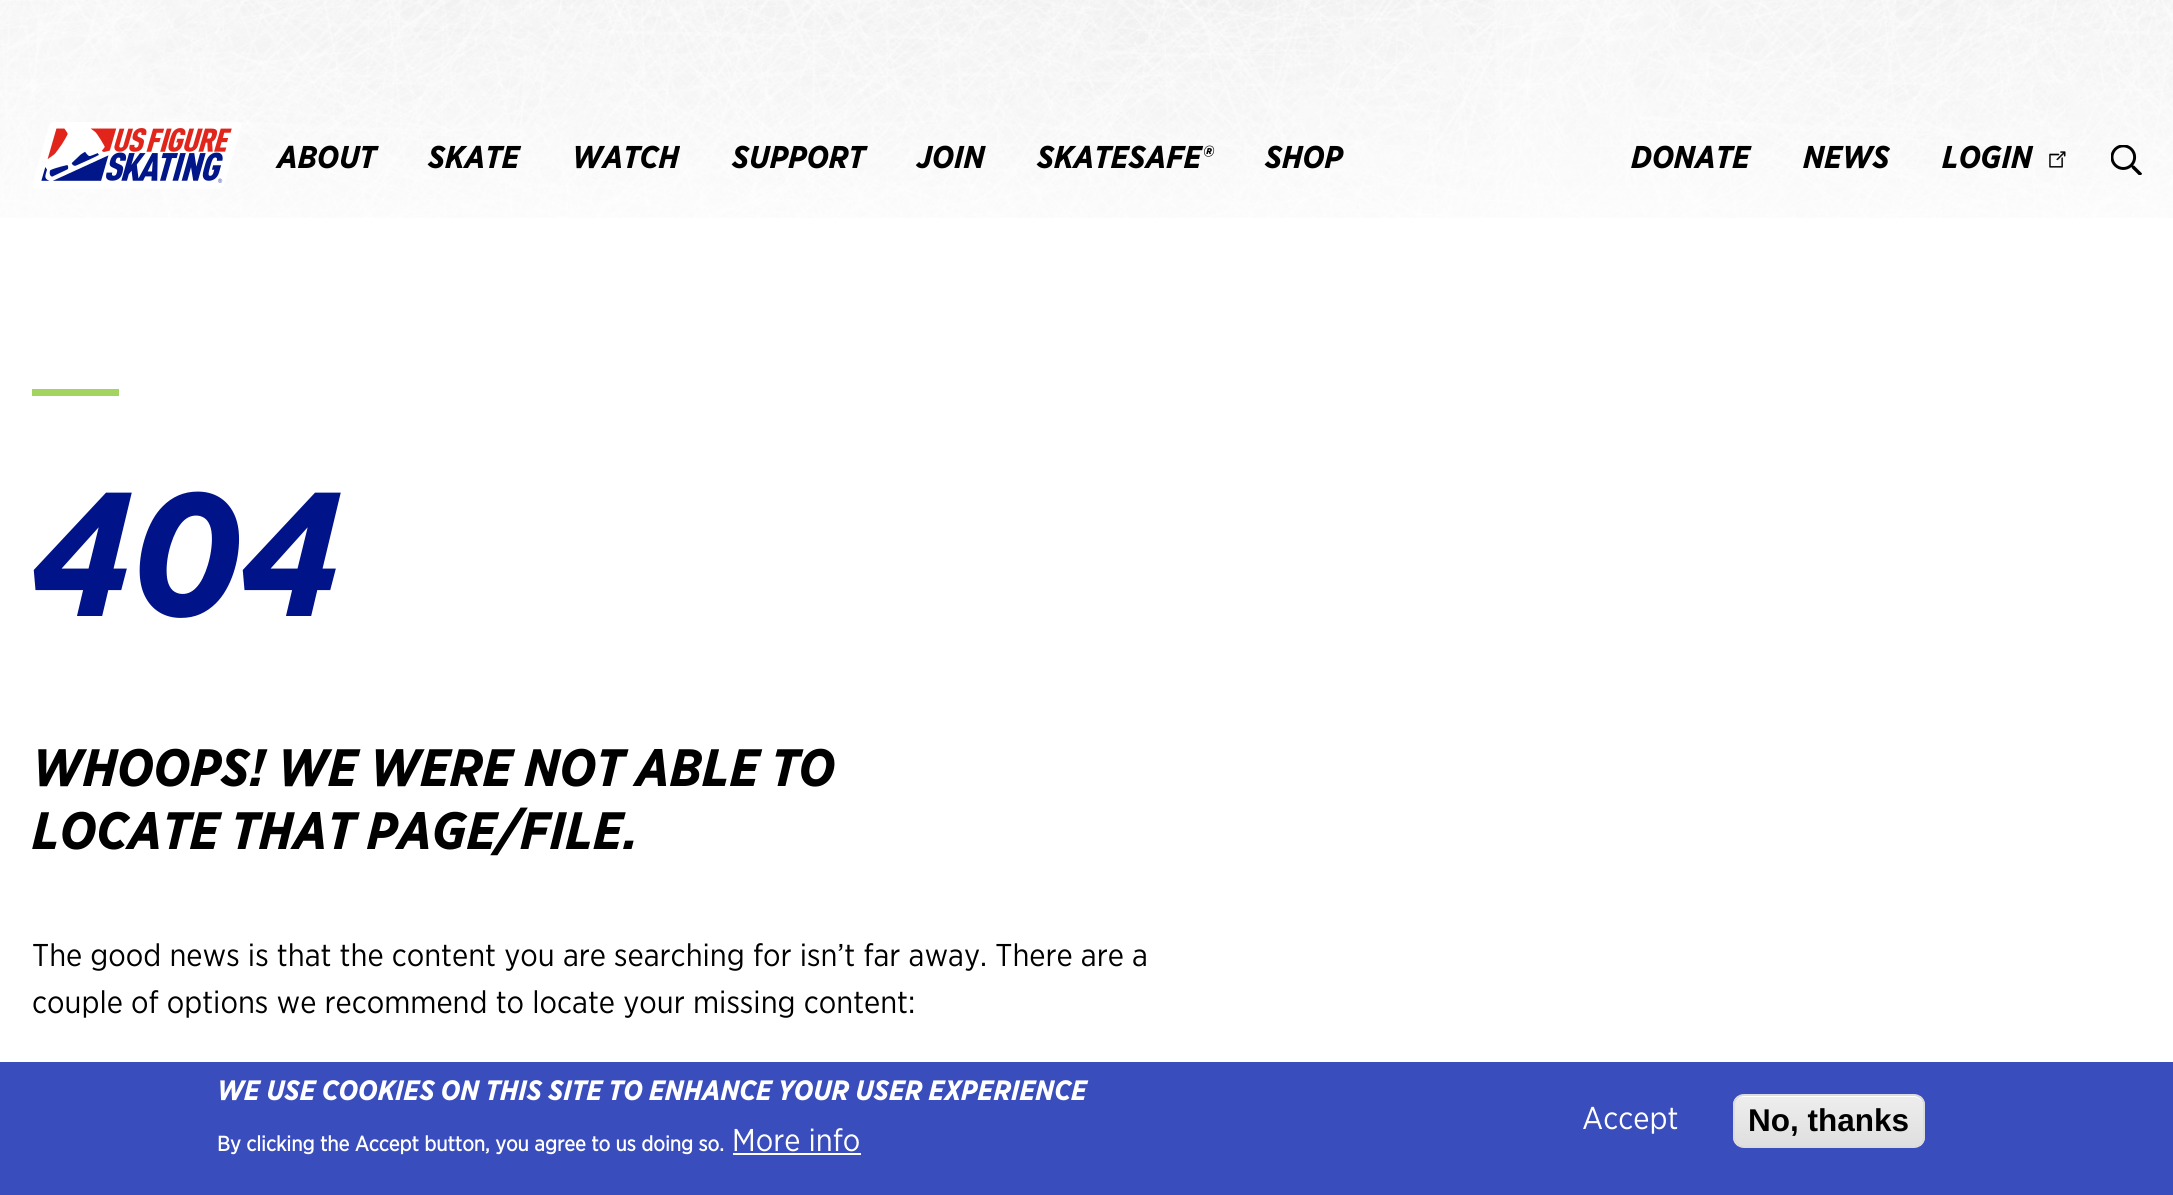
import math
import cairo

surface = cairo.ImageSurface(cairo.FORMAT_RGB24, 2173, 1195)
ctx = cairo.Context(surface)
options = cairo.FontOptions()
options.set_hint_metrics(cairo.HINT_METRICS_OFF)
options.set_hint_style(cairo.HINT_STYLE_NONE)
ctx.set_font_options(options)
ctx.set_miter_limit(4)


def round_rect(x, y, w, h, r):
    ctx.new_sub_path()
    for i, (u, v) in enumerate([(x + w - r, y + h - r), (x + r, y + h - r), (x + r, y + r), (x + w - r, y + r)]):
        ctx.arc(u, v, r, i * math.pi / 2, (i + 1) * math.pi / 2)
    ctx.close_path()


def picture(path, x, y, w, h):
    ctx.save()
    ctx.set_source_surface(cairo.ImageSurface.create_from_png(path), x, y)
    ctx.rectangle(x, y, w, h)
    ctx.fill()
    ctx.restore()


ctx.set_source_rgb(1, 1, 1)
ctx.paint()
picture("img1.png", 0, 0, 2173, 218)
picture("img2.png", 33, 122, 208, 67)
ctx.select_font_face("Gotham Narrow", cairo.FONT_SLANT_ITALIC, cairo.FONT_WEIGHT_BOLD)
ctx.set_font_size(31.5)
ctx.set_source_rgb(0, 0, 0)
ctx.move_to(277, 168)
ctx.show_text("ABOUT")
ctx.move_to(428, 168)
ctx.show_text("SKATE")
ctx.move_to(572, 168)
ctx.show_text("WATCH")
ctx.move_to(732, 168)
ctx.show_text("SUPPORT")
ctx.move_to(917, 168)
ctx.show_text("JOIN")
ctx.move_to(1037, 168)
ctx.show_text("SKATESAFE®")
ctx.move_to(1265, 168)
ctx.show_text("SHOP")
ctx.move_to(1631, 168)
ctx.show_text("DONATE")
ctx.move_to(1803, 168)
ctx.show_text("NEWS")
ctx.move_to(1942, 168)
ctx.show_text("LOGIN")
picture("img3.png", 2049, 151, 17, 17)
picture("img4.png", 2111, 145, 31, 30)
ctx.set_source_rgb(0.635, 0.831, 0.373)
ctx.rectangle(32, 389, 87, 7)
ctx.fill()
ctx.set_font_size(175)
ctx.set_source_rgb(0, 0.078, 0.537)
ctx.move_to(32, 616)
ctx.show_text("404")
ctx.set_font_size(52.5)
ctx.set_source_rgb(0, 0, 0)
ctx.move_to(32, 786)
ctx.show_text("WHOOPS! WE WERE NOT ABLE TO")
ctx.move_to(32, 849)
ctx.show_text("LOCATE THAT PAGE/FILE.")
ctx.select_font_face("Gotham Narrow")
ctx.set_font_size(31.5)
ctx.move_to(32, 966)
ctx.show_text("The good news is that the content you are searching for isn’t far away. There are a")
ctx.move_to(32, 1013)
ctx.show_text("couple of options we recommend to locate your missing content:")
ctx.set_source_rgb(0.227, 0.302, 0.741)
ctx.rectangle(0, 1062, 2173, 133)
ctx.fill()
ctx.select_font_face("Gotham Narrow", cairo.FONT_SLANT_ITALIC, cairo.FONT_WEIGHT_BOLD)
ctx.set_font_size(28)
ctx.set_source_rgb(1, 1, 1)
ctx.move_to(217, 1100)
ctx.show_text("WE USE COOKIES ON THIS SITE TO ENHANCE YOUR USER EXPERIENCE")
ctx.select_font_face("Gotham Narrow", cairo.FONT_SLANT_NORMAL, cairo.FONT_WEIGHT_BOLD)
ctx.set_font_size(21)
ctx.move_to(217, 1151)
ctx.show_text("By clicking the Accept button, you agree to us doing so.")
ctx.select_font_face("Gotham Narrow")
ctx.set_font_size(31.5)
ctx.move_to(732, 1151)
ctx.show_text("More info")
ctx.rectangle(733, 1153, 128, 2)
ctx.fill()
ctx.move_to(1582, 1129)
ctx.show_text("Accept")
ctx.save()
round_rect(1733, 1094, 192, 54, 11)
ctx.clip()
gradient = cairo.LinearGradient(1829, 1096, 1829, 1146)
gradient.add_color_stop_rgba(0.05, 0.929, 0.929, 0.929, 1)
gradient.add_color_stop_rgba(1, 0.875, 0.875, 0.875, 1)
ctx.set_source(gradient)
ctx.rectangle(1733, 1096, 192, 50)
ctx.fill()
ctx.restore()
ctx.new_path()
ctx.move_to(1743, 1097)
ctx.line_to(1914, 1097)
ctx.curve_to(1919, 1097, 1923, 1101, 1923, 1106)
ctx.line_to(1923, 1105)
ctx.curve_to(1923, 1100, 1919, 1096, 1914, 1096)
ctx.line_to(1743, 1096)
ctx.curve_to(1738, 1096, 1734, 1100, 1734, 1105)
ctx.line_to(1734, 1106)
ctx.curve_to(1734, 1101, 1738, 1097, 1743, 1097)
ctx.close_path()
ctx.fill()
round_rect(1734, 1095, 190, 52, 10)
ctx.set_source_rgb(0.863, 0.863, 0.863)
ctx.stroke()
ctx.select_font_face("Liberation Sans", cairo.FONT_SLANT_NORMAL, cairo.FONT_WEIGHT_BOLD)
ctx.set_source_rgb(0, 0, 0)
ctx.move_to(1748, 1131)
ctx.show_text("No, thanks")
surface.write_to_png("page.png")
